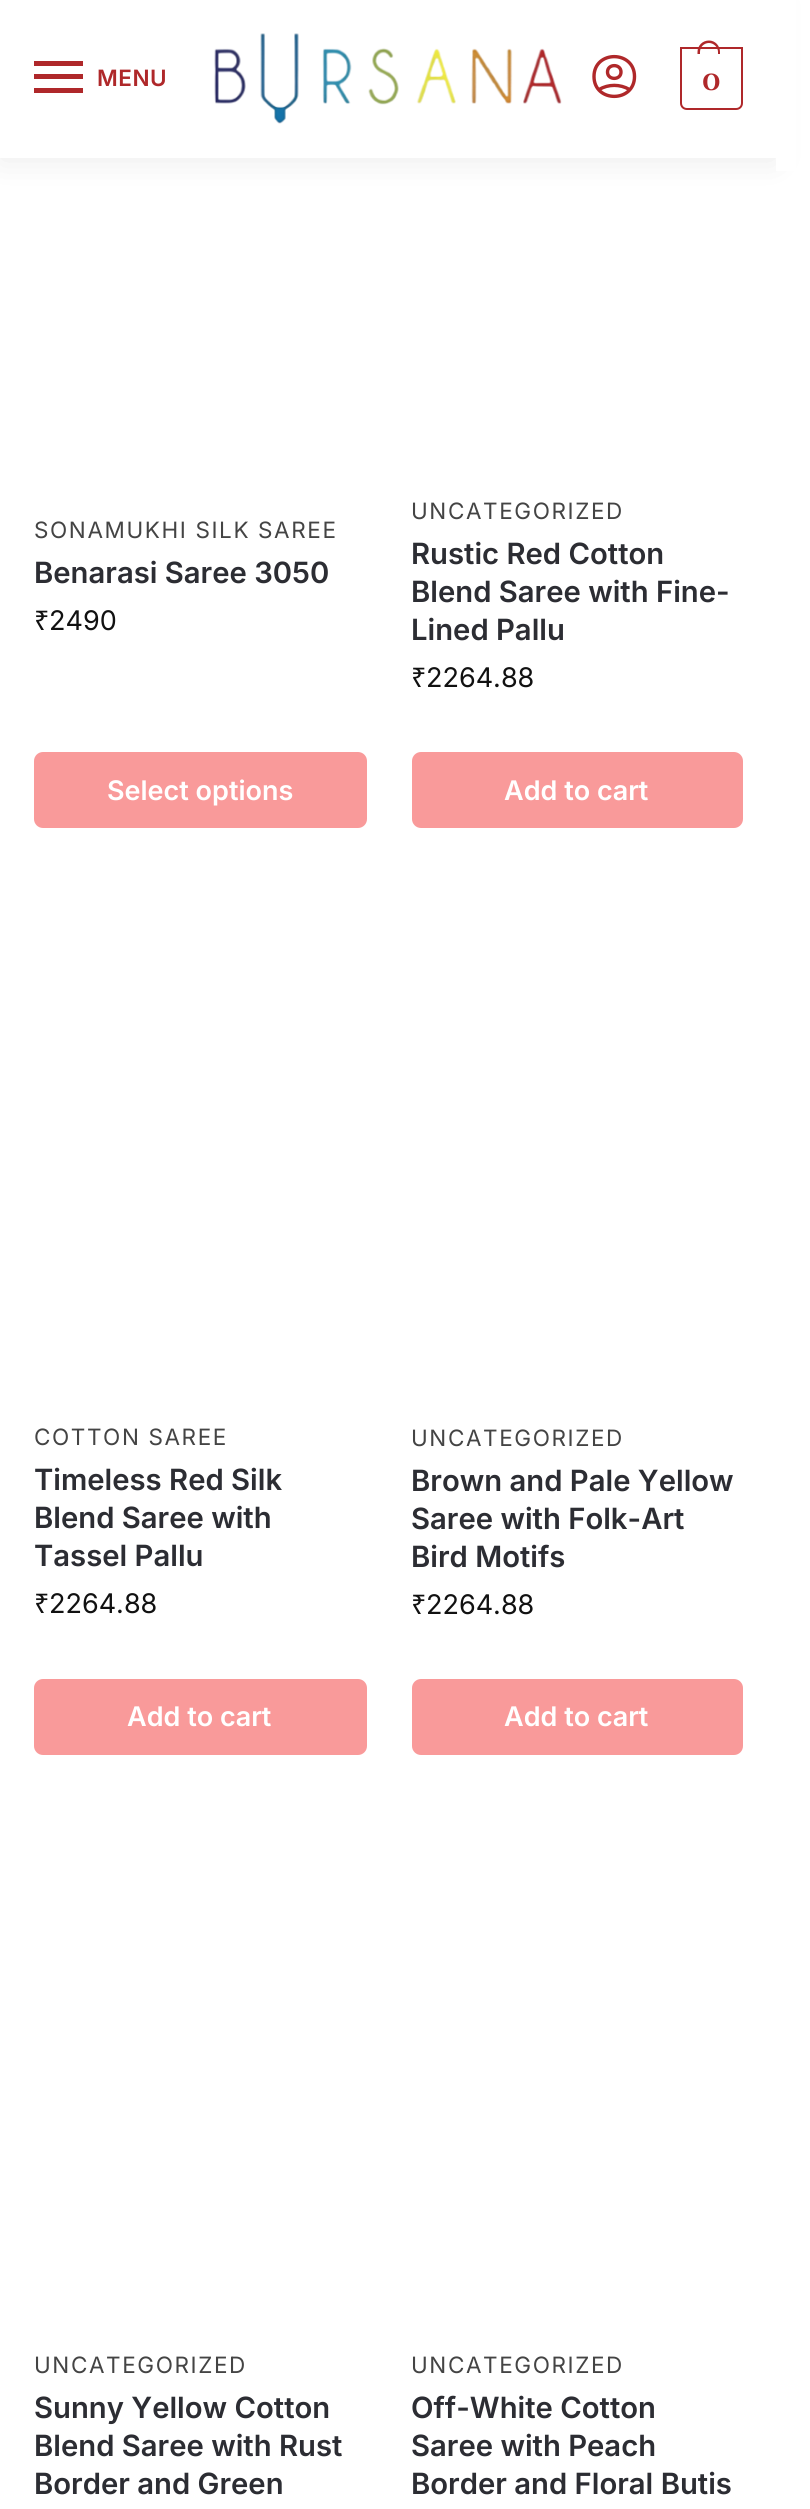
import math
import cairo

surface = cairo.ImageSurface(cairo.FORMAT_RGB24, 810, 2509)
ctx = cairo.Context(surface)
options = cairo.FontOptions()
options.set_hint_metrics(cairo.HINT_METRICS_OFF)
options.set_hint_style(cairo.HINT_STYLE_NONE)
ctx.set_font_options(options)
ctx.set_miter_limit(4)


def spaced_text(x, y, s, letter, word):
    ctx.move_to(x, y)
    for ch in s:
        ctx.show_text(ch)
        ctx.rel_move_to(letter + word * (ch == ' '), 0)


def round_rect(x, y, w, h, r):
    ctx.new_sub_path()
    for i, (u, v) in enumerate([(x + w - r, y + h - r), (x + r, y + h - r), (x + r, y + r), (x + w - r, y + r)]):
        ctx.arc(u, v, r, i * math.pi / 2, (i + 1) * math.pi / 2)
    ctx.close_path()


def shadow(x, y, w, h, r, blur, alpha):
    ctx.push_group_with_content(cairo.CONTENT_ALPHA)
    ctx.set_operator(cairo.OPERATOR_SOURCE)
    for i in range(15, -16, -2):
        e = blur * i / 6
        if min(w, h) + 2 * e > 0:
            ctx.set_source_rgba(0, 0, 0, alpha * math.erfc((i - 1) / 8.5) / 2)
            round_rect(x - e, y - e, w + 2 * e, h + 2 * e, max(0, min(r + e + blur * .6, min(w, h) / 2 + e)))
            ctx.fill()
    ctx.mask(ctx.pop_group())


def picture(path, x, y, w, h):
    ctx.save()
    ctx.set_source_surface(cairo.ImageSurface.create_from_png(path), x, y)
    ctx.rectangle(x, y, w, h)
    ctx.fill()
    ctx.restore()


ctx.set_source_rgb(1, 1, 1)
ctx.paint()
ctx.set_source_rgb(0, 0, 0)
shadow(0, 2, 776, 158, 0, 17, 0.08)
ctx.set_source_rgb(1, 1, 1)
ctx.rectangle(0, 0, 776, 158)
ctx.fill()
ctx.set_source_rgb(0.686, 0.157, 0.165)
ctx.rectangle(34, 61, 49, 5)
ctx.fill()
ctx.rectangle(34, 74, 49, 5)
ctx.fill()
ctx.select_font_face("Inter SemiBold")
ctx.set_font_size(22.5)
spaced_text(97, 86, "MENU", 0.5, 0)
ctx.rectangle(34, 88, 49, 5)
ctx.fill()
picture("img1.png", 214, 33, 348, 91)
ctx.new_path()
ctx.move_to(599, 89.5)
ctx.curve_to(608.5, 84, 620, 84, 629.5, 89.5)
ctx.move_to(621, 72)
ctx.curve_to(621, 80.5, 607.5, 80.5, 607.5, 72)
ctx.curve_to(607.5, 63.5, 621, 63.5, 621, 72)
ctx.close_path()
ctx.move_to(634.5, 76.5)
ctx.curve_to(634.5, 103, 594, 103, 594, 76.5)
ctx.curve_to(594, 50, 634.5, 50, 634.5, 76.5)
ctx.close_path()
ctx.set_line_width(3.4)
ctx.set_line_cap(cairo.LINE_CAP_ROUND)
ctx.set_line_join(cairo.LINE_JOIN_ROUND)
ctx.stroke()
ctx.new_path()
ctx.move_to(681, 48)
ctx.line_to(742, 48)
ctx.line_to(742, 103)
ctx.curve_to(742, 106.5, 739.5, 109, 736, 109)
ctx.line_to(687, 109)
ctx.curve_to(683.5, 109, 681, 106.5, 681, 103)
ctx.close_path()
ctx.set_line_width(2)
ctx.set_line_cap(cairo.LINE_CAP_BUTT)
ctx.set_line_join(cairo.LINE_JOIN_MITER)
ctx.stroke()
ctx.set_fill_rule(cairo.FILL_RULE_EVEN_ODD)
ctx.new_path()
ctx.move_to(709, 40.5)
ctx.curve_to(715, 40.5, 720, 45.5, 720, 52)
ctx.line_to(720, 54)
ctx.line_to(697.5, 54)
ctx.line_to(697.5, 52)
ctx.curve_to(697.5, 45.5, 702.5, 40.5, 709, 40.5)
ctx.close_path()
ctx.move_to(709, 43)
ctx.curve_to(713.5, 43, 718, 47, 718, 52)
ctx.line_to(718, 54)
ctx.line_to(700, 54)
ctx.line_to(700, 52)
ctx.curve_to(700, 47, 704, 43, 709, 43)
ctx.close_path()
ctx.fill()
ctx.select_font_face("Cinzel Decorative", cairo.FONT_SLANT_NORMAL, cairo.FONT_WEIGHT_BOLD)
ctx.set_font_size(27)
spaced_text(702, 90, "0", -2, 0)
ctx.set_source_rgb(1, 1, 1)
ctx.rectangle(776, 0, 20, 171)
ctx.fill()
ctx.select_font_face("Inter")
ctx.set_font_size(22.5)
ctx.set_source_rgb(0.267, 0.267, 0.267)
spaced_text(34, 538, "SONAMUKHI SILK SAREE", 1.6, 0)
ctx.select_font_face("Inter SemiBold")
ctx.set_font_size(29.25)
ctx.set_source_rgb(0.173, 0.176, 0.2)
ctx.move_to(34, 583)
ctx.show_text("Benarasi Saree 3050")
ctx.select_font_face("Noto Sans")
ctx.set_font_size(27)
ctx.set_source_rgb(0.067, 0.067, 0.067)
ctx.move_to(34, 630)
ctx.show_text("₹")
ctx.select_font_face("Inter")
ctx.move_to(49, 630)
ctx.show_text("2490")
ctx.set_source_rgb(0.973, 0.604, 0.604)
round_rect(34, 752, 333, 76, 9)
ctx.fill()
ctx.select_font_face("Inter SemiBold")
ctx.set_source_rgb(1, 1, 1)
ctx.move_to(107, 800)
ctx.show_text("Select options")
ctx.select_font_face("Inter")
ctx.set_font_size(22.5)
ctx.set_source_rgb(0.267, 0.267, 0.267)
spaced_text(411, 519, "UNCATEGORIZED", 1.6, 0)
ctx.select_font_face("Inter SemiBold")
ctx.set_font_size(29.25)
ctx.set_source_rgb(0.173, 0.176, 0.2)
ctx.move_to(411, 564)
ctx.show_text("Rustic Red Cotton")
ctx.move_to(411, 602)
ctx.show_text("Blend Saree with Fine-")
ctx.move_to(411, 640)
ctx.show_text("Lined Pallu")
ctx.select_font_face("Noto Sans")
ctx.set_font_size(27)
ctx.set_source_rgb(0.067, 0.067, 0.067)
ctx.move_to(411, 687)
ctx.show_text("₹")
ctx.select_font_face("Inter")
ctx.move_to(426, 687)
ctx.show_text("2264.88")
ctx.set_source_rgb(0.973, 0.604, 0.604)
round_rect(412, 752, 331, 76, 9)
ctx.fill()
ctx.select_font_face("Inter SemiBold")
ctx.set_source_rgb(1, 1, 1)
ctx.move_to(504, 800)
ctx.show_text("Add to cart")
ctx.new_path()
ctx.move_to(562.5, 803.5)
ctx.curve_to(555, 796, 555, 783.5, 562.5, 776)
ctx.set_source_rgb(0.973, 0.604, 0.604)
ctx.set_line_width(2.2)
ctx.stroke()
ctx.select_font_face("Inter")
ctx.set_font_size(22.5)
ctx.set_source_rgb(0.267, 0.267, 0.267)
spaced_text(34, 1445, "COTTON SAREE", 1.6, 0)
ctx.select_font_face("Inter SemiBold")
ctx.set_font_size(29.25)
ctx.set_source_rgb(0.173, 0.176, 0.2)
ctx.move_to(34, 1490)
ctx.show_text("Timeless Red Silk")
ctx.move_to(34, 1528)
ctx.show_text("Blend Saree with")
ctx.move_to(34, 1566)
ctx.show_text("Tassel Pallu")
ctx.select_font_face("Noto Sans")
ctx.set_font_size(27)
ctx.set_source_rgb(0.067, 0.067, 0.067)
ctx.move_to(34, 1613)
ctx.show_text("₹")
ctx.select_font_face("Inter")
ctx.move_to(49, 1613)
ctx.show_text("2264.88")
ctx.set_source_rgb(0.973, 0.604, 0.604)
round_rect(34, 1679, 333, 76, 9)
ctx.fill()
ctx.select_font_face("Inter SemiBold")
ctx.set_source_rgb(1, 1, 1)
ctx.move_to(127, 1726)
ctx.show_text("Add to cart")
ctx.select_font_face("Inter")
ctx.set_font_size(22.5)
ctx.set_source_rgb(0.267, 0.267, 0.267)
spaced_text(411, 1446, "UNCATEGORIZED", 1.6, 0)
ctx.select_font_face("Inter SemiBold")
ctx.set_font_size(29.25)
ctx.set_source_rgb(0.173, 0.176, 0.2)
ctx.move_to(411, 1491)
ctx.show_text("Brown and Pale Yellow")
ctx.move_to(411, 1529)
ctx.show_text("Saree with Folk-Art")
ctx.move_to(411, 1567)
ctx.show_text("Bird Motifs")
ctx.select_font_face("Noto Sans")
ctx.set_font_size(27)
ctx.set_source_rgb(0.067, 0.067, 0.067)
ctx.move_to(411, 1614)
ctx.show_text("₹")
ctx.select_font_face("Inter")
ctx.move_to(426, 1614)
ctx.show_text("2264.88")
ctx.set_source_rgb(0.973, 0.604, 0.604)
round_rect(412, 1679, 331, 76, 9)
ctx.fill()
ctx.select_font_face("Inter SemiBold")
ctx.set_source_rgb(1, 1, 1)
ctx.move_to(504, 1726)
ctx.show_text("Add to cart")
ctx.new_path()
ctx.move_to(562.5, 1730.5)
ctx.curve_to(555, 1723, 555, 1710.5, 562.5, 1703)
ctx.set_source_rgb(0.973, 0.604, 0.604)
ctx.stroke()
ctx.select_font_face("Inter")
ctx.set_font_size(22.5)
ctx.set_source_rgb(0.267, 0.267, 0.267)
spaced_text(34, 2373, "UNCATEGORIZED", 1.6, 0)
ctx.select_font_face("Inter SemiBold")
ctx.set_font_size(29.25)
ctx.set_source_rgb(0.173, 0.176, 0.2)
ctx.move_to(34, 2418)
ctx.show_text("Sunny Yellow Cotton")
ctx.move_to(34, 2456)
ctx.show_text("Blend Saree with Rust")
ctx.move_to(34, 2494)
ctx.show_text("Border and Green")
ctx.select_font_face("Inter")
ctx.set_font_size(22.5)
ctx.set_source_rgb(0.267, 0.267, 0.267)
spaced_text(411, 2373, "UNCATEGORIZED", 1.6, 0)
ctx.select_font_face("Inter SemiBold")
ctx.set_font_size(29.25)
ctx.set_source_rgb(0.173, 0.176, 0.2)
ctx.move_to(411, 2418)
ctx.show_text("Off-White Cotton")
ctx.move_to(411, 2456)
ctx.show_text("Saree with Peach")
ctx.move_to(411, 2494)
ctx.show_text("Border and Floral Butis")
surface.write_to_png("page.png")
